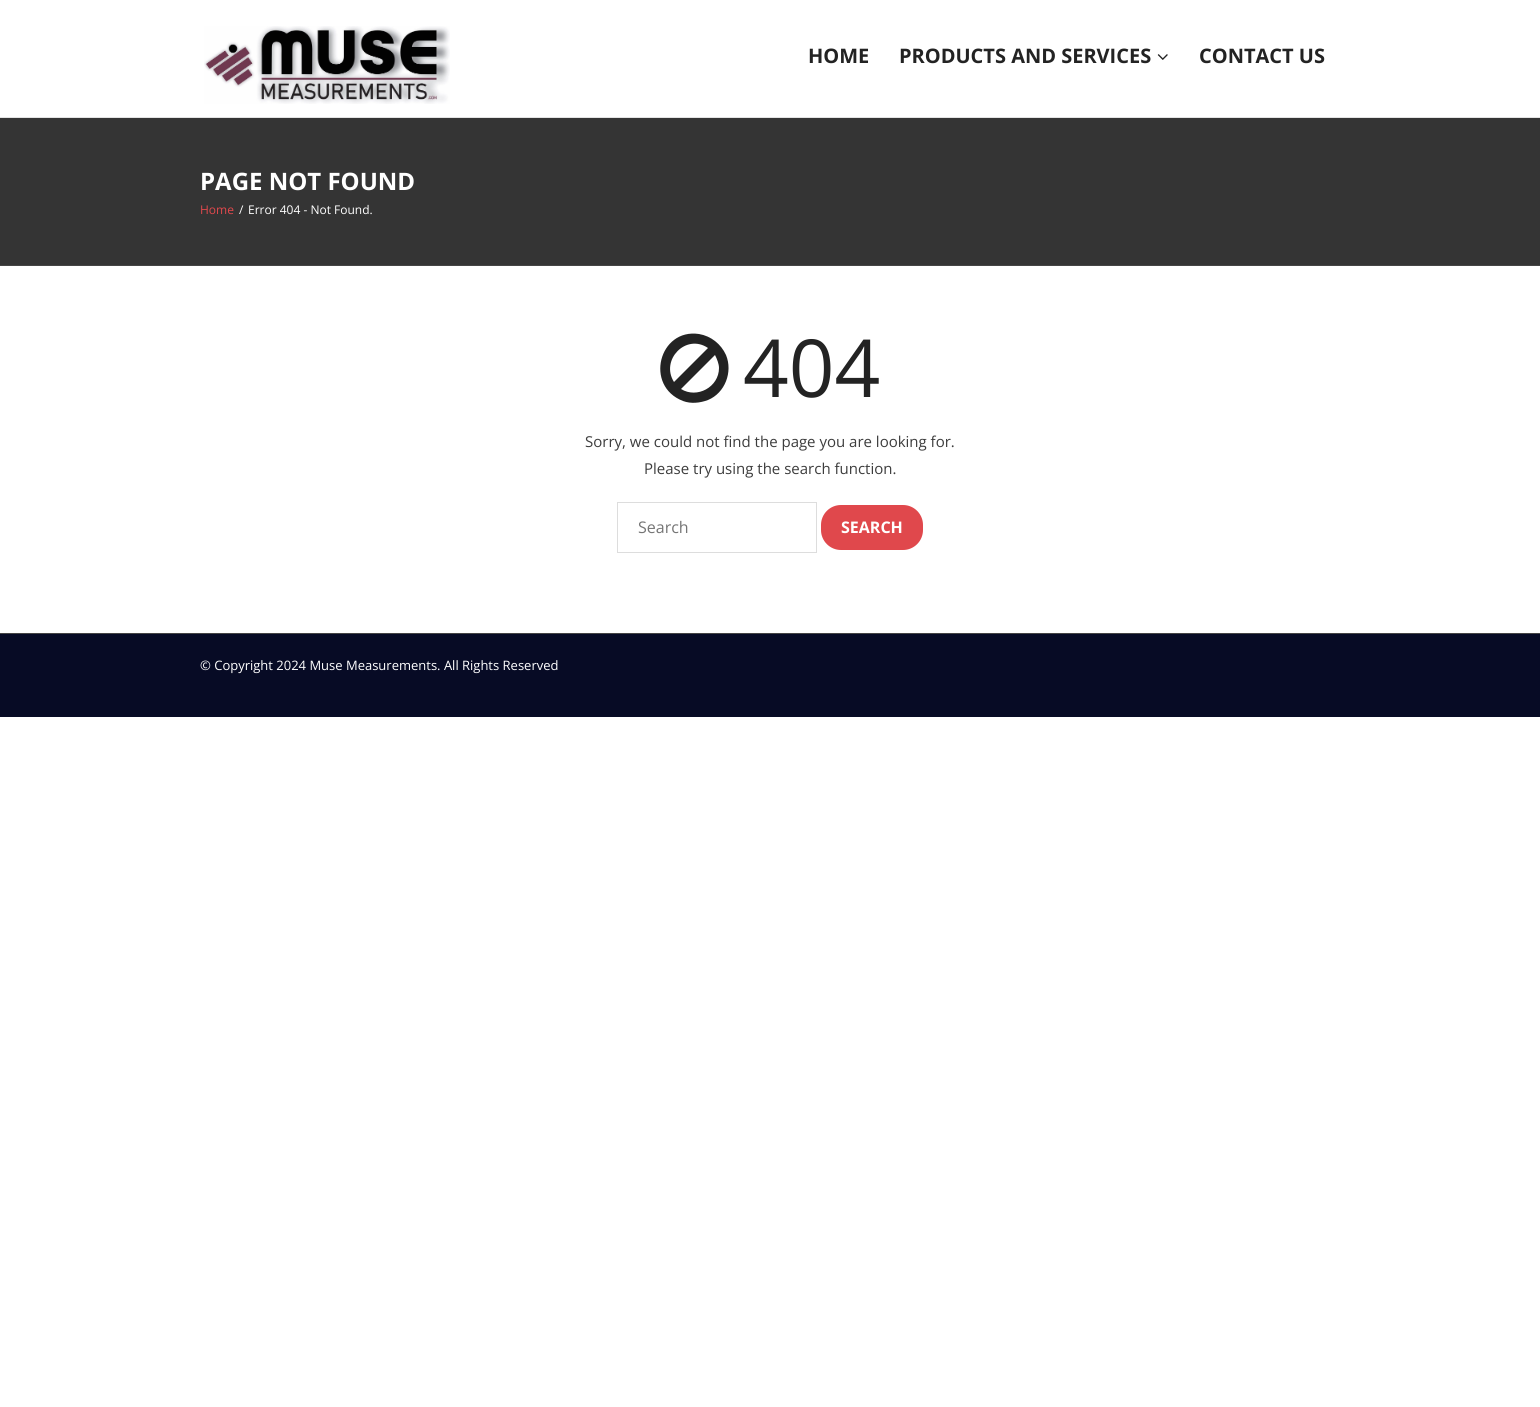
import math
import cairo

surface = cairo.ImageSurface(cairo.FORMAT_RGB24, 1540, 1407)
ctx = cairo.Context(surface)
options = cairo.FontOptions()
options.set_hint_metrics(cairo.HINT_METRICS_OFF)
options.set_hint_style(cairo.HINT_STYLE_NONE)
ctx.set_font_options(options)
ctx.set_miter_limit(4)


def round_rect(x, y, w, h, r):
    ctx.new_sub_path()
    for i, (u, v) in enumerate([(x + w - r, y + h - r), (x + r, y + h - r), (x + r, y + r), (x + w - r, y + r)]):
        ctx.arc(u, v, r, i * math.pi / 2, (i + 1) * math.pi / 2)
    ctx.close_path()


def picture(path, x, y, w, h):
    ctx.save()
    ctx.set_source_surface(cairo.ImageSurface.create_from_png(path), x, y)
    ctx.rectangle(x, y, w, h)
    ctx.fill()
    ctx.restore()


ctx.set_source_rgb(1, 1, 1)
ctx.paint()
ctx.set_source_rgb(0.89, 0.89, 0.89)
ctx.rectangle(0, 117, 1540, 1)
ctx.fill()
picture("img1.png", 204, 26, 246, 78)
ctx.select_font_face("Open Sans", cairo.FONT_SLANT_NORMAL, cairo.FONT_WEIGHT_BOLD)
ctx.set_font_size(20)
ctx.set_source_rgb(0.137, 0.137, 0.137)
ctx.move_to(808, 63)
ctx.show_text("HOME")
ctx.move_to(899, 63)
ctx.show_text("PRODUCTS AND SERVICES")
picture("img2.png", 1157, 54, 11, 6)
ctx.move_to(1199, 63)
ctx.show_text("CONTACT US")
ctx.set_source_rgb(0.204, 0.204, 0.204)
ctx.rectangle(0, 118, 1540, 147)
ctx.fill()
ctx.set_source_rgb(0.271, 0.271, 0.271)
ctx.rectangle(0, 265, 1540, 1)
ctx.fill()
ctx.set_font_size(24)
ctx.set_source_rgb(1, 1, 1)
ctx.move_to(200, 190)
ctx.show_text("PAGE NOT FOUND")
ctx.select_font_face("Open Sans")
ctx.set_font_size(12)
ctx.set_source_rgb(0.878, 0.282, 0.298)
ctx.move_to(200, 214)
ctx.show_text("Home")
ctx.set_source_rgb(1, 1, 1)
ctx.move_to(239, 214)
ctx.show_text("/")
ctx.move_to(248, 214)
ctx.show_text("Error 404 - Not Found.")
ctx.set_source_rgb(0.137, 0.137, 0.137)
ctx.new_path()
ctx.move_to(719, 368)
ctx.curve_to(719, 364, 717, 359, 715, 355)
ctx.line_to(681, 389)
ctx.curve_to(697, 399, 719, 387, 719, 368)
ctx.close_path()
ctx.move_to(674, 382)
ctx.line_to(708, 348)
ctx.curve_to(686, 333, 660, 360, 674, 382)
ctx.close_path()
ctx.move_to(726, 355)
ctx.curve_to(733, 372, 725, 393, 708, 400)
ctx.curve_to(700, 403, 691, 404, 683, 401)
ctx.curve_to(644, 386, 659, 328, 699, 334)
ctx.curve_to(711, 336, 721, 344, 726, 355)
ctx.close_path()
ctx.fill()
ctx.set_font_size(80)
ctx.move_to(743, 397)
ctx.show_text("404")
ctx.set_font_size(15)
ctx.set_source_rgb(0.239, 0.239, 0.239)
ctx.move_to(585, 447)
ctx.show_text("Sorry, we could not find the page you are looking for.")
ctx.move_to(644, 474)
ctx.show_text("Please try using the search function.")
ctx.rectangle(617.5, 502.5, 199, 50)
ctx.set_source_rgb(0.867, 0.867, 0.867)
ctx.set_line_width(1)
ctx.stroke()
ctx.set_font_size(16)
ctx.set_source_rgb(0.459, 0.459, 0.459)
ctx.move_to(638, 533)
ctx.show_text("Search")
ctx.set_source_rgb(0.878, 0.282, 0.298)
round_rect(821, 505, 102, 45, 20)
ctx.fill()
ctx.select_font_face("Open Sans", cairo.FONT_SLANT_NORMAL, cairo.FONT_WEIGHT_BOLD)
ctx.set_source_rgb(1, 1, 1)
ctx.move_to(841, 533)
ctx.show_text("SEARCH")
ctx.set_source_rgb(0.031, 0.043, 0.145)
ctx.rectangle(0, 634, 1540, 83)
ctx.fill()
ctx.set_source_rgb(0.271, 0.271, 0.271)
ctx.rectangle(0, 633, 1540, 1)
ctx.fill()
ctx.select_font_face("Open Sans")
ctx.set_font_size(13)
ctx.set_source_rgb(1, 1, 1)
ctx.move_to(200, 670)
ctx.show_text("© Copyright 2024 Muse Measurements. All Rights Reserved")
surface.write_to_png("page.png")
